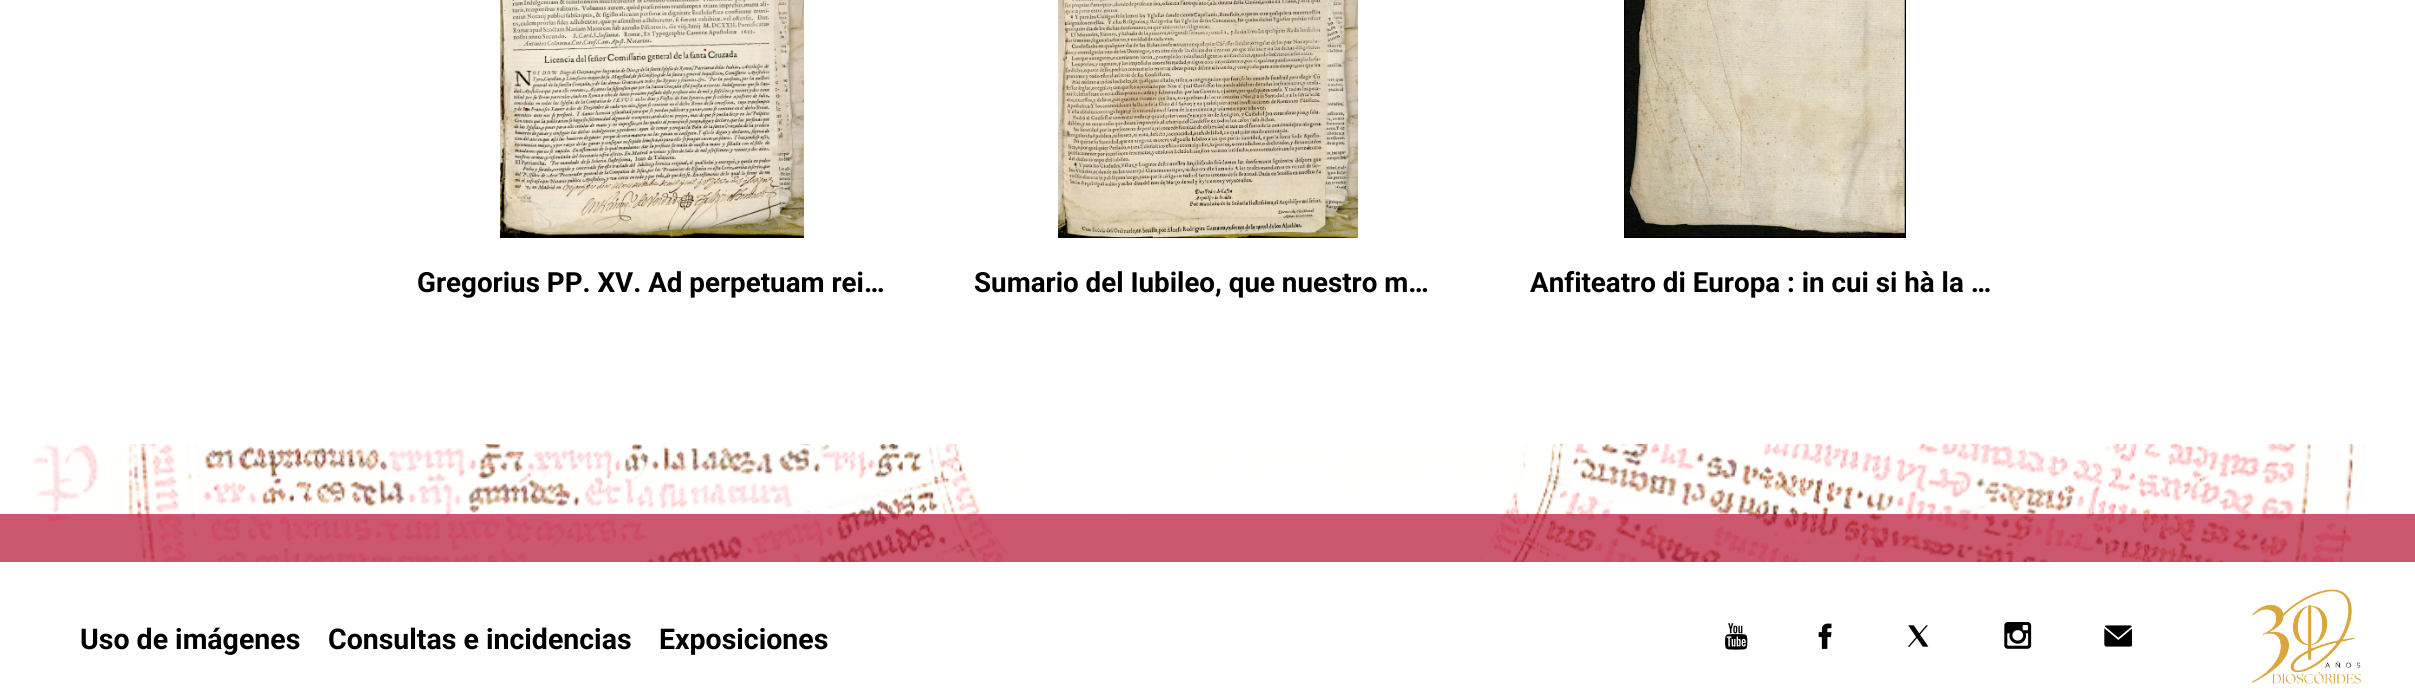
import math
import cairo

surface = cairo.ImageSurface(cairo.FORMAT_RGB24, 2415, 693)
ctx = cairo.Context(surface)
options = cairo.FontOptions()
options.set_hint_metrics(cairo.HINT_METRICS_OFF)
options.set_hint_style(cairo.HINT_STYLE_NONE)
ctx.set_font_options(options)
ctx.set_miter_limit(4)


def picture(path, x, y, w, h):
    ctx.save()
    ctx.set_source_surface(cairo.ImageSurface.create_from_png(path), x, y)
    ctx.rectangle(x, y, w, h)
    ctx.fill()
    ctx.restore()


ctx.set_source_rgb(1, 1, 1)
ctx.paint()
picture("img1.png", 500, 0, 304, 238)
ctx.select_font_face("Roboto", cairo.FONT_SLANT_NORMAL, cairo.FONT_WEIGHT_BOLD)
ctx.set_font_size(27.75)
ctx.set_source_rgb(0, 0, 0)
ctx.move_to(417, 292)
ctx.show_text("Gregorius PP. XV. Ad perpetuam rei…")
picture("img2.png", 1058, 0, 300, 238)
ctx.move_to(974, 292)
ctx.show_text("Sumario del Iubileo, que nuestro m…")
picture("img3.png", 1624, 0, 282, 238)
ctx.move_to(1530, 292)
ctx.show_text("Anfiteatro di Europa : in cui si hà la …")
picture("img4.png", 33, 444, 2333, 118)
ctx.set_source_rgba(0.718, 0.071, 0.204, 0.7)
ctx.rectangle(0, 514, 2415, 48)
ctx.fill()
ctx.set_font_size(28.5)
ctx.set_source_rgb(0, 0, 0)
ctx.move_to(80, 649)
ctx.show_text("Uso de imágenes")
ctx.move_to(328, 649)
ctx.show_text("Consultas e incidencias")
ctx.move_to(659, 649)
ctx.show_text("Exposiciones")
picture("img5.png", 1725, 623, 23, 27)
picture("img6.png", 1818, 623, 14, 26)
picture("img7.png", 1907, 625, 22, 22)
picture("img8.png", 2004, 622, 28, 27)
picture("img9.png", 2104, 625, 28, 22)
picture("img10.png", 2252, 589, 109, 95)
surface.write_to_png("page.png")
